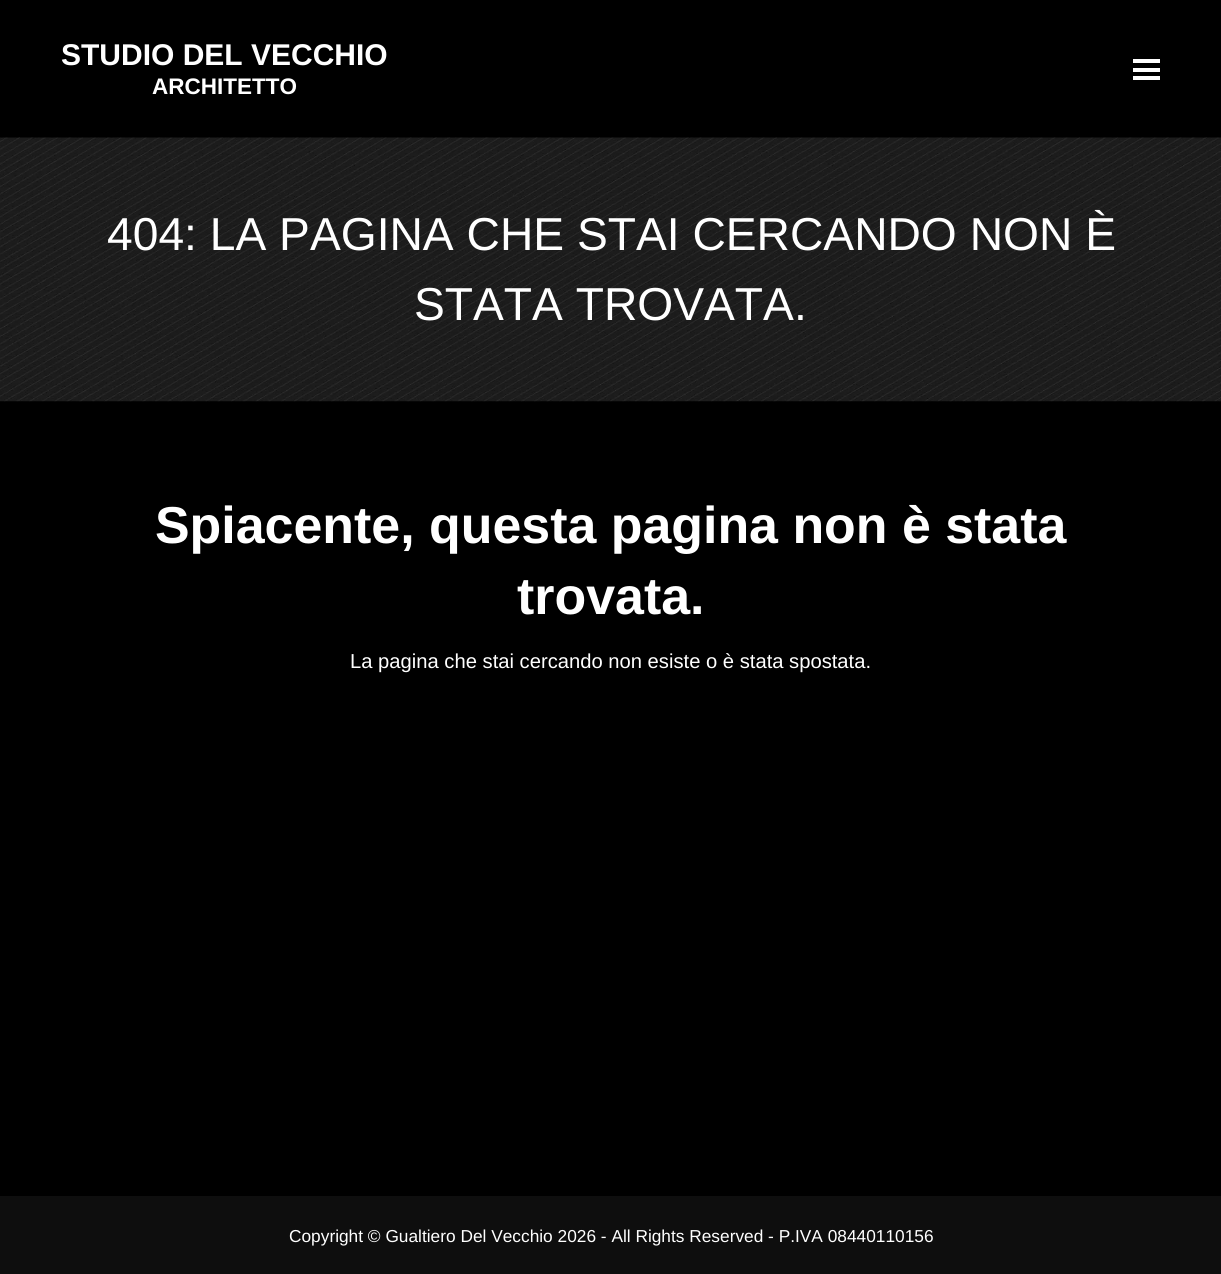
import math
import cairo

surface = cairo.ImageSurface(cairo.FORMAT_RGB24, 1221, 1274)
ctx = cairo.Context(surface)
options = cairo.FontOptions()
options.set_hint_metrics(cairo.HINT_METRICS_OFF)
options.set_hint_style(cairo.HINT_STYLE_NONE)
ctx.set_font_options(options)
ctx.set_miter_limit(4)


def picture(path, x, y, w, h):
    ctx.save()
    ctx.set_source_surface(cairo.ImageSurface.create_from_png(path), x, y)
    ctx.rectangle(x, y, w, h)
    ctx.fill()
    ctx.restore()


ctx.set_source_rgb(0, 0, 0)
ctx.paint()
ctx.select_font_face("Liberation Sans", cairo.FONT_SLANT_NORMAL, cairo.FONT_WEIGHT_BOLD)
ctx.set_font_size(30)
ctx.set_source_rgb(1, 1, 1)
ctx.move_to(61, 65)
ctx.show_text("STUDIO DEL VECCHIO")
ctx.set_font_size(22.5)
ctx.move_to(152, 94)
ctx.show_text("ARCHITETTO")
ctx.rectangle(1133, 68, 27, 4)
ctx.fill()
ctx.rectangle(1133, 59, 27, 4)
ctx.fill()
ctx.rectangle(1133, 76, 27, 4)
ctx.fill()
picture("img1.png", 0, 137, 1221, 265)
ctx.select_font_face("Liberation Sans")
ctx.set_font_size(46.2)
ctx.move_to(107, 250)
ctx.show_text("404: LA PAGINA CHE STAI CERCANDO NON È")
ctx.move_to(414, 320)
ctx.show_text("STATA TROVATA.")
ctx.select_font_face("Liberation Sans", cairo.FONT_SLANT_NORMAL, cairo.FONT_WEIGHT_BOLD)
ctx.set_font_size(51.9)
ctx.move_to(155, 543)
ctx.show_text("Spiacente, questa pagina non è stata")
ctx.move_to(517, 614)
ctx.show_text("trovata.")
ctx.select_font_face("Liberation Sans")
ctx.set_font_size(20.2)
ctx.move_to(350, 668)
ctx.show_text("La pagina che stai cercando non esiste o è stata spostata.")
ctx.set_source_rgb(0.055, 0.055, 0.055)
ctx.rectangle(0, 1196, 1221, 78)
ctx.fill()
ctx.set_font_size(17.3)
ctx.set_source_rgb(1, 1, 1)
ctx.move_to(289, 1242)
ctx.show_text("Copyright © Gualtiero Del Vecchio 2026 - All Rights Reserved - P.IVA 08440110156")
surface.write_to_png("page.png")
